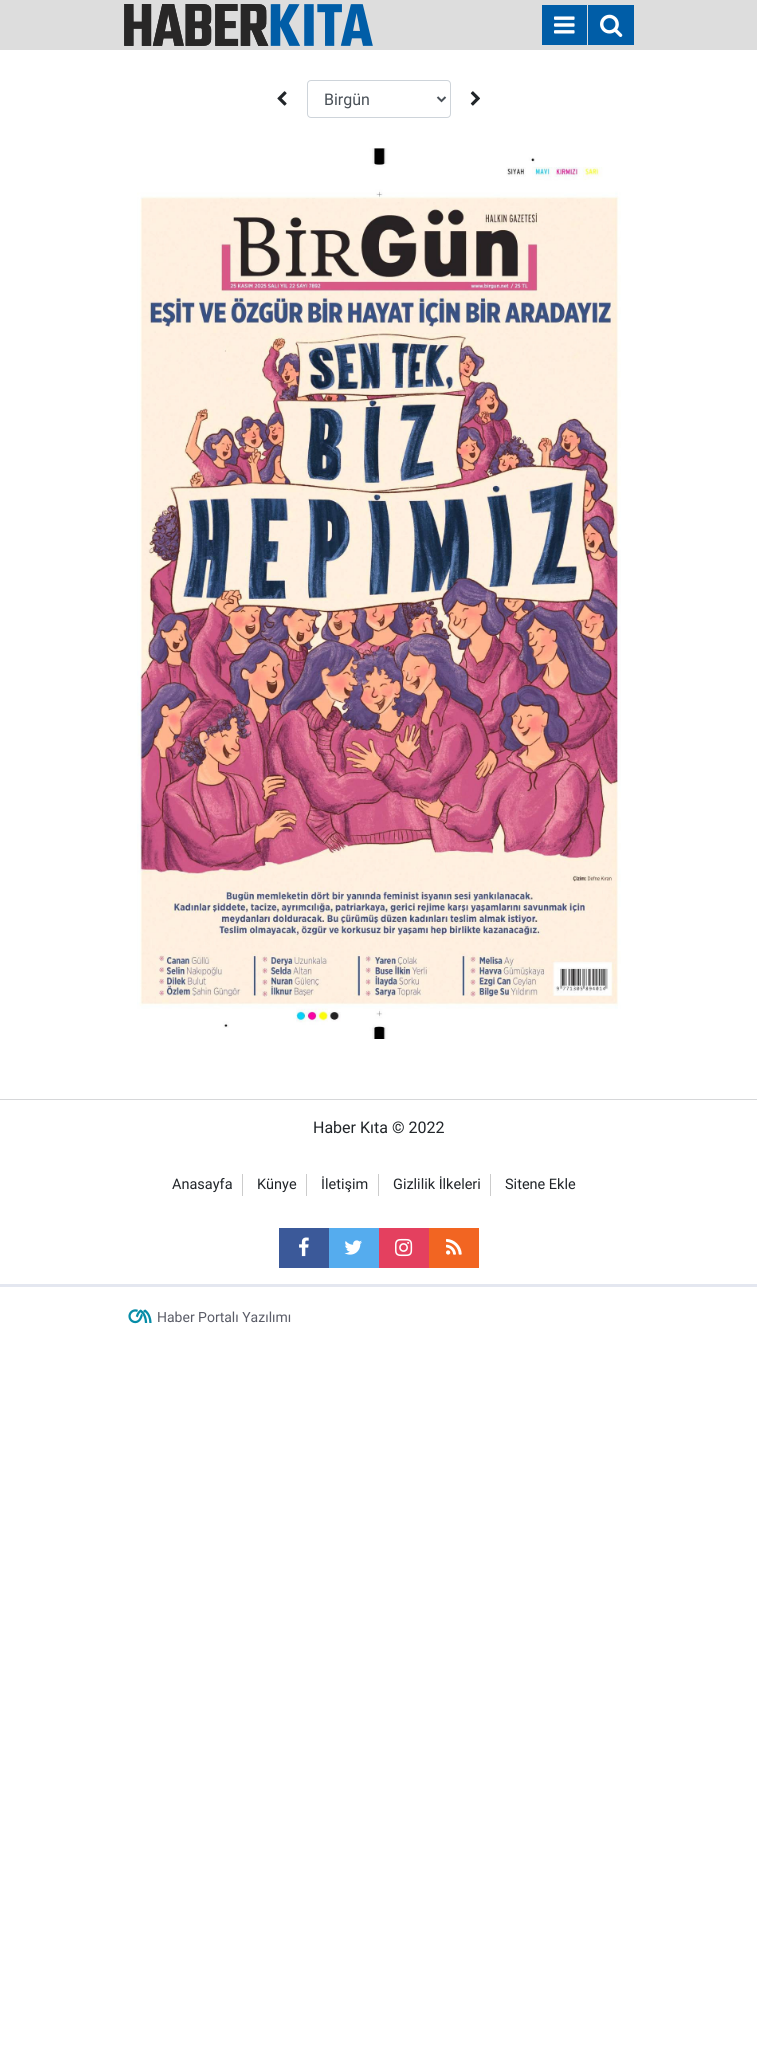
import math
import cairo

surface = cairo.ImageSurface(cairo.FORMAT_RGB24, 757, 2071)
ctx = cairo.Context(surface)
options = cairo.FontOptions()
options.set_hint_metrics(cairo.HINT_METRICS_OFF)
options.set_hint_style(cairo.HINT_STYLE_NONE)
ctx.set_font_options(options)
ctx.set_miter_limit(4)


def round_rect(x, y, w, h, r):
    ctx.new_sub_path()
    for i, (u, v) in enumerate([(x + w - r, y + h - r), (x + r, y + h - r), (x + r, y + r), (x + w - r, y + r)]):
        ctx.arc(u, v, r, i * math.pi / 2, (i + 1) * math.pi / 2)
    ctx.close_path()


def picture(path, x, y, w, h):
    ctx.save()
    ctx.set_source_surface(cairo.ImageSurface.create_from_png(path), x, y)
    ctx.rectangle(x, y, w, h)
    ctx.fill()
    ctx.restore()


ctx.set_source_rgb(1, 1, 1)
ctx.paint()
ctx.set_source_rgb(0.867, 0.867, 0.867)
ctx.rectangle(0, 0, 757, 50)
ctx.fill()
picture("img1.png", 124, 4, 249, 42)
ctx.set_source_rgb(0, 0.365, 0.655)
ctx.rectangle(542, 5, 45, 40)
ctx.fill()
picture("img2.png", 554, 16, 21, 18)
ctx.rectangle(588, 5, 46, 40)
ctx.fill()
picture("img3.png", 600, 14, 23, 23)
picture("img4.png", 277, 91, 10, 15)
round_rect(307.5, 80.5, 143, 37, 3.5)
ctx.set_source_rgb(0.808, 0.831, 0.855)
ctx.set_line_width(1)
ctx.stroke()
ctx.new_path()
ctx.move_to(437.5, 97)
ctx.line_to(441.5, 101)
ctx.line_to(445.5, 97)
ctx.set_source_rgb(0.286, 0.314, 0.341)
ctx.set_line_width(2)
ctx.stroke()
ctx.select_font_face("Roboto")
ctx.set_font_size(16)
ctx.move_to(324, 105)
ctx.show_text("Birgün")
picture("img5.png", 470, 91, 10, 15)
picture("img6.png", 137, 148, 484, 891)
ctx.set_source_rgb(0.839, 0.843, 0.851)
ctx.rectangle(0, 1099, 757, 1)
ctx.fill()
ctx.set_source_rgb(0.894, 0.906, 0.941)
ctx.rectangle(0, 1284, 757, 3)
ctx.fill()
ctx.set_source_rgb(0.129, 0.145, 0.161)
ctx.move_to(313, 1133)
ctx.show_text("Haber Kıta © 2022")
ctx.set_source_rgb(0.8, 0.8, 0.8)
ctx.rectangle(242, 1174, 1, 22)
ctx.fill()
ctx.set_font_size(14.5)
ctx.set_source_rgb(0.129, 0.145, 0.161)
ctx.move_to(172, 1189)
ctx.show_text("Anasayfa")
ctx.set_source_rgb(0.8, 0.8, 0.8)
ctx.rectangle(306, 1174, 1, 22)
ctx.fill()
ctx.set_source_rgb(0.129, 0.145, 0.161)
ctx.move_to(257, 1189)
ctx.show_text("Künye")
ctx.set_source_rgb(0.8, 0.8, 0.8)
ctx.rectangle(378, 1174, 1, 22)
ctx.fill()
ctx.set_source_rgb(0.129, 0.145, 0.161)
ctx.move_to(321, 1189)
ctx.show_text("İletişim")
ctx.set_source_rgb(0.8, 0.8, 0.8)
ctx.rectangle(490, 1174, 1, 22)
ctx.fill()
ctx.set_source_rgb(0.129, 0.145, 0.161)
ctx.move_to(393, 1189)
ctx.show_text("Gizlilik İlkeleri")
ctx.move_to(505, 1189)
ctx.show_text("Sitene Ekle")
ctx.set_source_rgb(0.231, 0.349, 0.6)
ctx.rectangle(279, 1228, 50, 40)
ctx.fill()
picture("img7.png", 299, 1237, 10, 20)
ctx.set_source_rgb(0.333, 0.675, 0.933)
ctx.rectangle(329, 1228, 50, 40)
ctx.fill()
picture("img8.png", 344, 1240, 18, 15)
ctx.set_source_rgb(0.894, 0.251, 0.373)
ctx.rectangle(379, 1228, 50, 40)
ctx.fill()
picture("img9.png", 395, 1238, 18, 19)
ctx.set_source_rgb(0.949, 0.396, 0.133)
ctx.rectangle(429, 1228, 50, 40)
ctx.fill()
picture("img10.png", 446, 1238, 16, 17)
picture("img11.png", 128, 1309, 24, 15)
ctx.set_font_size(14)
ctx.set_source_rgb(0.353, 0.361, 0.404)
ctx.move_to(157, 1322)
ctx.show_text("Haber Portalı Yazılımı")
surface.write_to_png("page.png")
